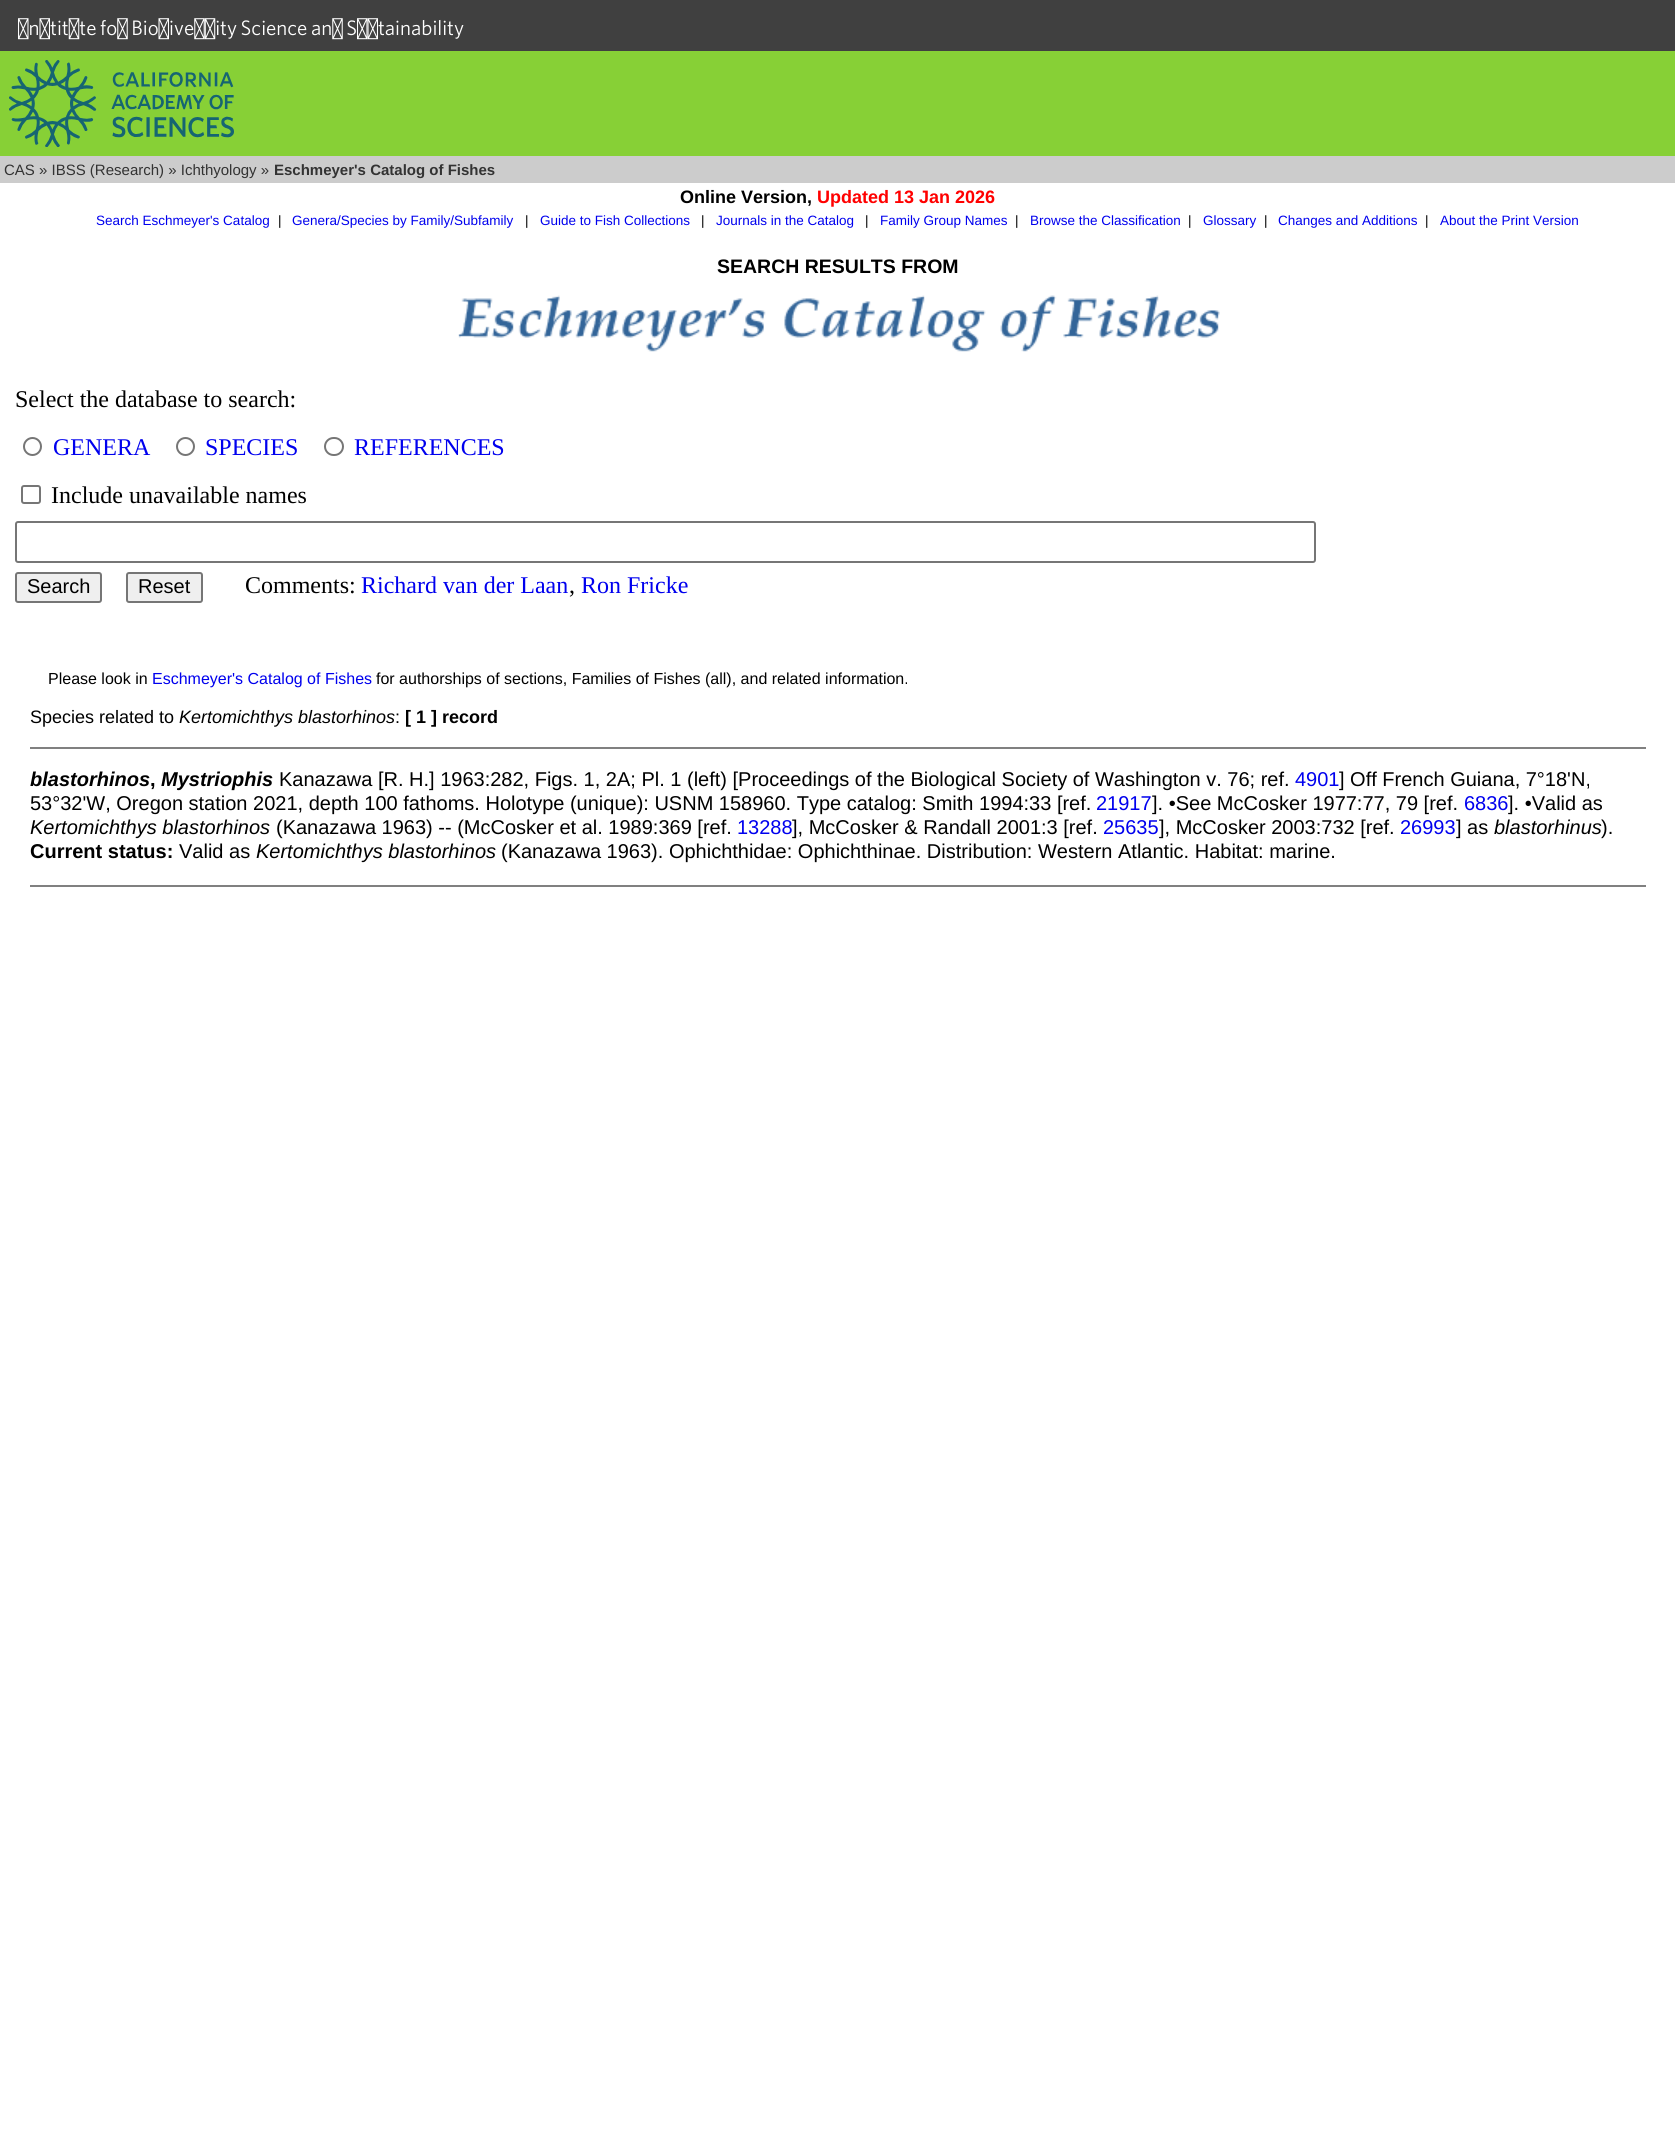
import math
import cairo

surface = cairo.ImageSurface(cairo.FORMAT_RGB24, 1675, 2132)
ctx = cairo.Context(surface)
options = cairo.FontOptions()
options.set_hint_metrics(cairo.HINT_METRICS_OFF)
options.set_hint_style(cairo.HINT_STYLE_NONE)
ctx.set_font_options(options)
ctx.set_miter_limit(4)


def spaced_text(x, y, s, letter, word):
    ctx.move_to(x, y)
    for ch in s:
        ctx.show_text(ch)
        ctx.rel_move_to(letter + word * (ch == ' '), 0)


def round_rect(x, y, w, h, r):
    ctx.new_sub_path()
    for i, (u, v) in enumerate([(x + w - r, y + h - r), (x + r, y + h - r), (x + r, y + r), (x + w - r, y + r)]):
        ctx.arc(u, v, r, i * math.pi / 2, (i + 1) * math.pi / 2)
    ctx.close_path()


def picture(path, x, y, w, h):
    ctx.save()
    ctx.set_source_surface(cairo.ImageSurface.create_from_png(path), x, y)
    ctx.rectangle(x, y, w, h)
    ctx.fill()
    ctx.restore()


ctx.set_source_rgb(1, 1, 1)
ctx.paint()
ctx.set_source_rgb(0.251, 0.251, 0.251)
ctx.rectangle(0, 0, 1675, 51)
ctx.fill()
ctx.select_font_face("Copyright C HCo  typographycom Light")
ctx.set_font_size(21)
ctx.set_source_rgb(1, 1, 1)
spaced_text(18, 35, "Institute for Biodiversity Science and Sustainability", 0, -1.25)
ctx.set_source_rgb(0.529, 0.816, 0.212)
ctx.rectangle(0, 51, 1675, 105)
ctx.fill()
picture("img1.png", 9, 60, 225, 87)
ctx.set_source_rgb(0.8, 0.8, 0.8)
ctx.rectangle(0, 156, 1675, 27)
ctx.fill()
ctx.select_font_face("Liberation Sans")
ctx.set_font_size(15)
ctx.set_source_rgb(0.2, 0.2, 0.2)
ctx.move_to(4, 175)
ctx.show_text("CAS » IBSS (Research) » Ichthyology »")
ctx.select_font_face("Liberation Sans", cairo.FONT_SLANT_NORMAL, cairo.FONT_WEIGHT_BOLD)
ctx.move_to(274, 175)
ctx.show_text("Eschmeyer's Catalog of Fishes")
ctx.set_font_size(18)
ctx.set_source_rgb(0, 0, 0)
ctx.move_to(680, 203)
ctx.show_text("Online Version,")
ctx.set_source_rgb(1, 0, 0)
ctx.move_to(817, 203)
ctx.show_text("Updated 13 Jan 2026")
ctx.select_font_face("Liberation Sans")
ctx.set_font_size(13.5)
ctx.set_source_rgb(0, 0, 0.933)
ctx.move_to(96, 225)
ctx.show_text("Search Eschmeyer's Catalog")
ctx.set_source_rgb(0, 0, 0)
ctx.move_to(278, 225)
ctx.show_text("|")
ctx.set_source_rgb(0, 0, 0.933)
ctx.move_to(292, 225)
ctx.show_text("Genera/Species by Family/Subfamily")
ctx.set_source_rgb(0, 0, 0)
ctx.move_to(525, 225)
ctx.show_text("|")
ctx.set_source_rgb(0, 0, 0.933)
ctx.move_to(540, 225)
ctx.show_text("Guide to Fish Collections")
ctx.set_source_rgb(0, 0, 0)
ctx.move_to(701, 225)
ctx.show_text("|")
ctx.set_source_rgb(0, 0, 0.933)
ctx.move_to(716, 225)
ctx.show_text("Journals in the Catalog")
ctx.set_source_rgb(0, 0, 0)
ctx.move_to(865, 225)
ctx.show_text("|")
ctx.set_source_rgb(0, 0, 0.933)
ctx.move_to(880, 225)
ctx.show_text("Family Group Names")
ctx.set_source_rgb(0, 0, 0)
ctx.move_to(1015, 225)
ctx.show_text("|")
ctx.set_source_rgb(0, 0, 0.933)
ctx.move_to(1030, 225)
ctx.show_text("Browse the Classification")
ctx.set_source_rgb(0, 0, 0)
ctx.move_to(1188, 225)
ctx.show_text("|")
ctx.set_source_rgb(0, 0, 0.933)
ctx.move_to(1203, 225)
ctx.show_text("Glossary")
ctx.set_source_rgb(0, 0, 0)
ctx.move_to(1264, 225)
ctx.show_text("|")
ctx.set_source_rgb(0, 0, 0.933)
ctx.move_to(1278, 225)
ctx.show_text("Changes and Additions")
ctx.set_source_rgb(0, 0, 0)
ctx.move_to(1425, 225)
ctx.show_text("|")
ctx.set_source_rgb(0, 0, 0.933)
ctx.move_to(1440, 225)
ctx.show_text("About the Print Version")
ctx.select_font_face("Liberation Sans", cairo.FONT_SLANT_NORMAL, cairo.FONT_WEIGHT_BOLD)
ctx.set_font_size(19.5)
ctx.set_source_rgb(0, 0, 0)
ctx.move_to(717, 273)
ctx.show_text("SEARCH RESULTS FROM")
picture("img2.png", 458, 295, 762, 57)
ctx.select_font_face("Liberation Serif")
ctx.set_font_size(24)
ctx.move_to(15, 407)
ctx.show_text("Select the database to search:")
ctx.new_path()
ctx.arc(32.5, 446.5, 8.5, 0, 2 * math.pi)
ctx.set_source_rgb(0.463, 0.463, 0.463)
ctx.stroke()
ctx.set_source_rgb(0, 0, 0.933)
ctx.move_to(53, 455)
ctx.show_text("GENERA")
ctx.new_path()
ctx.arc(185.5, 446.5, 8.5, 0, 2 * math.pi)
ctx.set_source_rgb(0.463, 0.463, 0.463)
ctx.stroke()
ctx.set_source_rgb(0, 0, 0.933)
ctx.move_to(205, 455)
ctx.show_text("SPECIES")
round_rect(325, 438, 18, 17, 8.5)
ctx.set_source_rgb(0.463, 0.463, 0.463)
ctx.stroke()
ctx.set_source_rgb(0, 0, 0.933)
ctx.move_to(354, 455)
ctx.show_text("REFERENCES")
round_rect(22, 486, 18, 17, 2)
ctx.set_source_rgb(0.463, 0.463, 0.463)
ctx.stroke()
ctx.set_source_rgb(0, 0, 0)
ctx.move_to(51, 503)
ctx.show_text("Include unavailable names")
round_rect(16, 522, 1299, 40, 2)
ctx.set_source_rgb(0.463, 0.463, 0.463)
ctx.stroke()
ctx.set_source_rgb(0.937, 0.937, 0.937)
round_rect(16, 573, 85, 29, 2)
ctx.fill_preserve()
ctx.set_source_rgb(0.463, 0.463, 0.463)
ctx.stroke()
ctx.select_font_face("Liberation Sans")
ctx.set_font_size(20)
ctx.set_source_rgb(0, 0, 0)
ctx.move_to(27, 593)
ctx.show_text("Search")
ctx.set_source_rgb(0.937, 0.937, 0.937)
round_rect(127, 573, 75, 29, 2)
ctx.fill_preserve()
ctx.set_source_rgb(0.463, 0.463, 0.463)
ctx.stroke()
ctx.set_source_rgb(0, 0, 0)
ctx.move_to(138, 593)
ctx.show_text("Reset")
ctx.select_font_face("Liberation Serif")
ctx.set_font_size(24)
ctx.move_to(245, 593)
ctx.show_text("Comments:")
ctx.set_source_rgb(0, 0, 0.933)
ctx.move_to(361, 593)
ctx.show_text("Richard van der Laan")
ctx.set_source_rgb(0, 0, 0)
ctx.move_to(569, 593)
ctx.show_text(",")
ctx.set_source_rgb(0, 0, 0.933)
ctx.move_to(581, 593)
ctx.show_text("Ron Fricke")
ctx.select_font_face("Liberation Sans")
ctx.set_font_size(16)
ctx.set_source_rgb(0, 0, 0)
ctx.move_to(48, 684)
ctx.show_text("Please look in")
ctx.set_source_rgb(0, 0, 0.933)
ctx.move_to(152, 684)
ctx.show_text("Eschmeyer's Catalog of Fishes")
ctx.set_source_rgb(0, 0, 0)
ctx.move_to(376, 684)
ctx.show_text("for authorships of sections, Families of Fishes (all), and related information.")
ctx.set_font_size(18)
ctx.move_to(30, 723)
ctx.show_text("Species related to")
ctx.select_font_face("Liberation Sans", cairo.FONT_SLANT_ITALIC)
ctx.move_to(179, 723)
ctx.show_text("Kertomichthys blastorhinos")
ctx.select_font_face("Liberation Sans")
ctx.move_to(395, 723)
ctx.show_text(":")
ctx.select_font_face("Liberation Sans", cairo.FONT_SLANT_NORMAL, cairo.FONT_WEIGHT_BOLD)
ctx.move_to(405, 723)
ctx.show_text("[ 1 ] record")
ctx.set_source_rgb(0.502, 0.502, 0.502)
ctx.rectangle(30, 747, 1616, 2)
ctx.fill()
ctx.select_font_face("Liberation Sans", cairo.FONT_SLANT_ITALIC, cairo.FONT_WEIGHT_BOLD)
ctx.set_font_size(20)
ctx.set_source_rgb(0, 0, 0)
ctx.move_to(30, 786)
ctx.show_text("blastorhinos")
ctx.select_font_face("Liberation Sans", cairo.FONT_SLANT_NORMAL, cairo.FONT_WEIGHT_BOLD)
ctx.move_to(150, 786)
ctx.show_text(",")
ctx.select_font_face("Liberation Sans", cairo.FONT_SLANT_ITALIC, cairo.FONT_WEIGHT_BOLD)
ctx.move_to(161, 786)
ctx.show_text("Mystriophis")
ctx.select_font_face("Liberation Sans")
ctx.move_to(279, 786)
ctx.show_text("Kanazawa [R. H.] 1963:282, Figs. 1, 2A; Pl. 1 (left) [Proceedings of the Biological Society of Washington v. 76; ref.")
ctx.set_source_rgb(0, 0, 0.933)
ctx.move_to(1295, 786)
ctx.show_text("4901")
ctx.set_source_rgb(0, 0, 0)
ctx.move_to(1339, 786)
ctx.show_text("] Off French Guiana, 7°18'N,")
ctx.move_to(30, 810)
ctx.show_text("53°32'W, Oregon station 2021, depth 100 fathoms. Holotype (unique): USNM 158960. Type catalog: Smith 1994:33 [ref.")
ctx.set_source_rgb(0, 0, 0.933)
ctx.move_to(1096, 810)
ctx.show_text("21917")
ctx.set_source_rgb(0, 0, 0)
ctx.move_to(1152, 810)
ctx.show_text("]. •See McCosker 1977:77, 79 [ref.")
ctx.set_source_rgb(0, 0, 0.933)
ctx.move_to(1464, 810)
ctx.show_text("6836")
ctx.set_source_rgb(0, 0, 0)
ctx.move_to(1508, 810)
ctx.show_text("]. •Valid as")
ctx.select_font_face("Liberation Sans", cairo.FONT_SLANT_ITALIC)
ctx.move_to(30, 834)
ctx.show_text("Kertomichthys blastorhinos")
ctx.select_font_face("Liberation Sans")
ctx.move_to(276, 834)
ctx.show_text("(Kanazawa 1963) -- (McCosker et al. 1989:369 [ref.")
ctx.set_source_rgb(0, 0, 0.933)
ctx.move_to(737, 834)
ctx.show_text("13288")
ctx.set_source_rgb(0, 0, 0)
ctx.move_to(792, 834)
ctx.show_text("], McCosker & Randall 2001:3 [ref.")
ctx.set_source_rgb(0, 0, 0.933)
ctx.move_to(1103, 834)
ctx.show_text("25635")
ctx.set_source_rgb(0, 0, 0)
ctx.move_to(1159, 834)
ctx.show_text("], McCosker 2003:732 [ref.")
ctx.set_source_rgb(0, 0, 0.933)
ctx.move_to(1400, 834)
ctx.show_text("26993")
ctx.set_source_rgb(0, 0, 0)
ctx.move_to(1456, 834)
ctx.show_text("] as")
ctx.select_font_face("Liberation Sans", cairo.FONT_SLANT_ITALIC)
ctx.move_to(1494, 834)
ctx.show_text("blastorhinus")
ctx.select_font_face("Liberation Sans")
ctx.move_to(1601, 834)
ctx.show_text(").")
ctx.select_font_face("Liberation Sans", cairo.FONT_SLANT_NORMAL, cairo.FONT_WEIGHT_BOLD)
ctx.move_to(30, 858)
ctx.show_text("Current status:")
ctx.select_font_face("Liberation Sans")
ctx.move_to(179, 858)
ctx.show_text("Valid as")
ctx.select_font_face("Liberation Sans", cairo.FONT_SLANT_ITALIC)
ctx.move_to(256, 858)
ctx.show_text("Kertomichthys blastorhinos")
ctx.select_font_face("Liberation Sans")
ctx.move_to(501, 858)
ctx.show_text("(Kanazawa 1963). Ophichthidae: Ophichthinae. Distribution: Western Atlantic. Habitat: marine.")
ctx.set_source_rgb(0.502, 0.502, 0.502)
ctx.rectangle(30, 885, 1616, 2)
ctx.fill()
surface.write_to_png("page.png")
